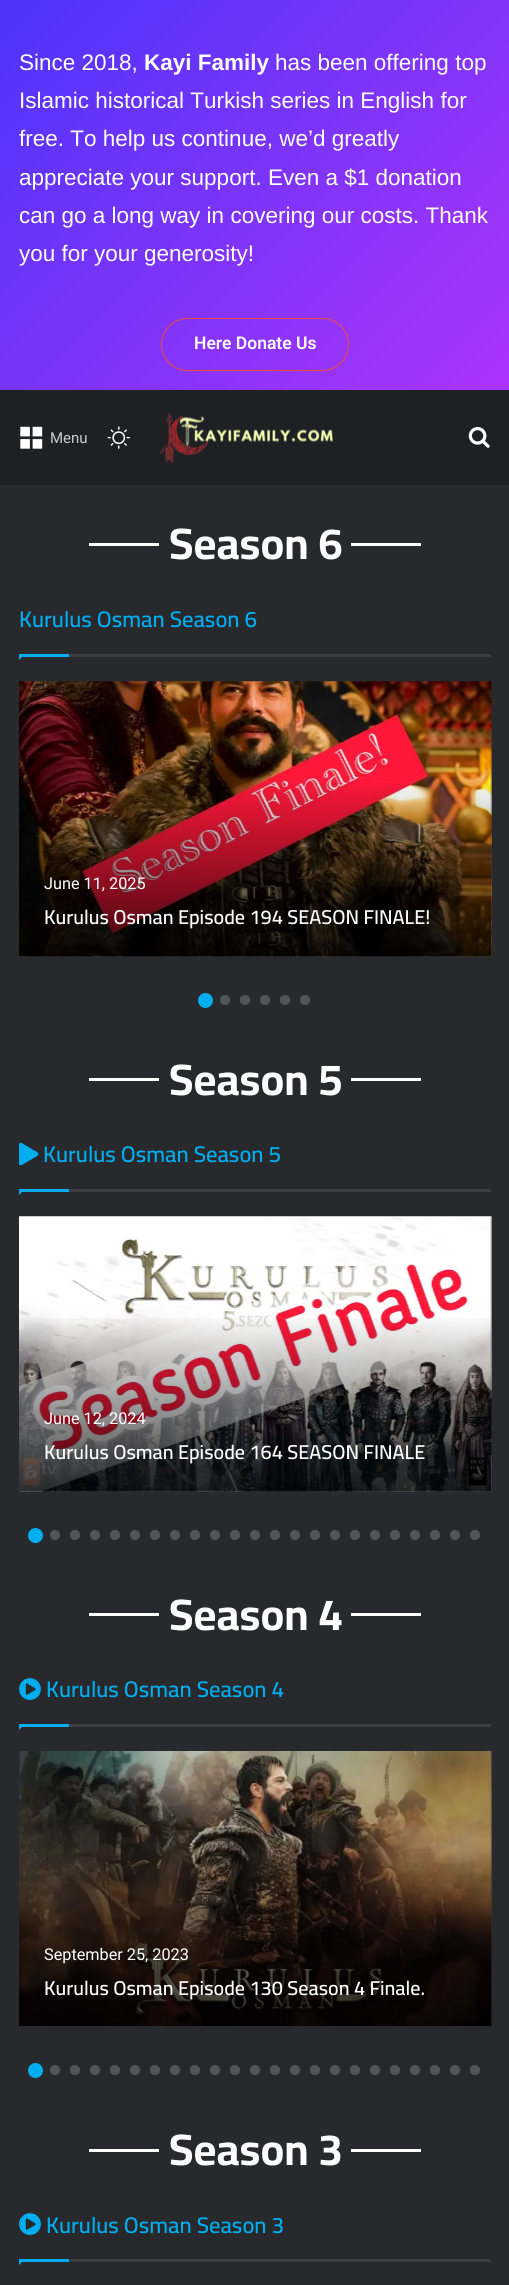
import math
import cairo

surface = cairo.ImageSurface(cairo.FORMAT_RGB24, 509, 2285)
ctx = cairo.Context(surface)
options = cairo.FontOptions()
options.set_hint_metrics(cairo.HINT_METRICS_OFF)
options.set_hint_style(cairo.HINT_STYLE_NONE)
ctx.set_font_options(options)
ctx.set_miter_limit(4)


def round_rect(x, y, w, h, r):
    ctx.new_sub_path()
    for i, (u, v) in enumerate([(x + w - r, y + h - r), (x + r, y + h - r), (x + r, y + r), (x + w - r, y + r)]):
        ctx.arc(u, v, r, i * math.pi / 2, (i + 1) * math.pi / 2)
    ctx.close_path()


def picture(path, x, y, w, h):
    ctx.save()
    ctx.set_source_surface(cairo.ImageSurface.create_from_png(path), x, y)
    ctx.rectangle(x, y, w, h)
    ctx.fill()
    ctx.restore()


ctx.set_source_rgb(1, 1, 1)
ctx.paint()
gradient = cairo.LinearGradient(30, -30, 480, 420)
gradient.add_color_stop_rgba(0, 0.302, 0.204, 0.98, 1)
gradient.add_color_stop_rgba(1, 0.678, 0.204, 0.98, 1)
ctx.set_source(gradient)
ctx.rectangle(0, 0, 509, 390)
ctx.fill()
ctx.select_font_face("Liberation Sans")
ctx.set_font_size(22.5)
ctx.set_source_rgb(1, 1, 1)
ctx.move_to(19, 70)
ctx.show_text("Since 2018,")
ctx.select_font_face("Liberation Sans", cairo.FONT_SLANT_NORMAL, cairo.FONT_WEIGHT_BOLD)
ctx.move_to(144, 70)
ctx.show_text("Kayi Family")
ctx.select_font_face("Liberation Sans")
ctx.move_to(275, 70)
ctx.show_text("has been offering top")
ctx.move_to(19, 108)
ctx.show_text("Islamic historical Turkish series in English for")
ctx.move_to(19, 146)
ctx.show_text("free. To help us continue, we’d greatly")
ctx.move_to(19, 185)
ctx.show_text("appreciate your support. Even a $1 donation")
ctx.move_to(19, 223)
ctx.show_text("can go a long way in covering our costs. Thank")
ctx.move_to(19, 261)
ctx.show_text("you for your generosity!")
round_rect(161.5, 318.5, 187, 52, 26)
ctx.set_source_rgb(0.906, 0.298, 0.235)
ctx.set_line_width(1)
ctx.stroke()
ctx.select_font_face("Roboto SemiBold")
ctx.set_font_size(17.5)
ctx.set_source_rgb(1, 1, 1)
ctx.move_to(194, 349)
ctx.show_text("Here Donate Us")
ctx.set_source_rgb(0.153, 0.161, 0.176)
ctx.rectangle(0, 485, 509, 1800)
ctx.fill()
ctx.set_source_rgb(0.122, 0.125, 0.141)
ctx.rectangle(0, 390, 509, 95)
ctx.fill()
picture("img1.png", 20, 426, 23, 23)
ctx.select_font_face("Roboto")
ctx.set_font_size(15)
ctx.set_source_rgb(0.8, 0.8, 0.8)
ctx.move_to(50, 443)
ctx.show_text("Menu")
picture("img2.png", 107, 426, 23, 23)
picture("img3.png", 159, 412, 174, 52)
picture("img4.png", 468, 427, 22, 21)
ctx.set_source_rgb(1, 1, 1)
ctx.rectangle(89, 543, 70, 3)
ctx.fill()
ctx.select_font_face("Cairo", cairo.FONT_SLANT_NORMAL, cairo.FONT_WEIGHT_BOLD)
ctx.set_font_size(44)
ctx.move_to(169, 559)
ctx.show_text("Season 6")
ctx.rectangle(351, 543, 70, 3)
ctx.fill()
ctx.set_source_rgb(0.239, 0.243, 0.259)
ctx.rectangle(69, 654, 422, 3)
ctx.fill()
ctx.select_font_face("Cairo SemiBold")
ctx.set_font_size(22.5)
ctx.set_source_rgb(0, 0.678, 0.937)
ctx.move_to(19, 627)
ctx.show_text("Kurulus Osman Season 6")
ctx.new_path()
ctx.move_to(19, 654)
ctx.line_to(25, 654)
ctx.line_to(19, 660)
ctx.close_path()
ctx.fill()
ctx.rectangle(19, 654, 50, 3)
ctx.fill()
picture("img5.png", 19, 681, 473, 276)
gradient = cairo.LinearGradient(255, 778, 255, 956)
gradient.add_color_stop_rgba(0, 0, 0, 0, 0)
gradient.add_color_stop_rgba(1, 0, 0, 0, 0.75)
ctx.set_source(gradient)
ctx.rectangle(19, 783, 472, 173)
ctx.fill()
ctx.select_font_face("Roboto")
ctx.set_font_size(16.25)
ctx.set_source_rgb(1, 1, 1)
ctx.move_to(44, 889)
ctx.show_text("June 11, 2025")
ctx.select_font_face("Cairo SemiBold")
ctx.set_font_size(20)
ctx.move_to(44, 924)
ctx.show_text("Kurulus Osman Episode 194 SEASON FINALE!")
ctx.set_source_rgb(0, 0.678, 0.937)
ctx.new_path()
ctx.arc(205.5, 1000.5, 7.5, 0, 2 * math.pi)
ctx.fill()
ctx.set_source_rgb(0.322, 0.329, 0.341)
ctx.arc(225, 1000, 5, 0, 2 * math.pi)
ctx.fill()
ctx.arc(245, 1000, 5, 0, 2 * math.pi)
ctx.fill()
ctx.arc(265, 1000, 5, 0, 2 * math.pi)
ctx.fill()
ctx.arc(285, 1000, 5, 0, 2 * math.pi)
ctx.fill()
ctx.arc(305, 1000, 5, 0, 2 * math.pi)
ctx.fill()
ctx.set_source_rgb(1, 1, 1)
ctx.rectangle(89, 1078, 70, 3)
ctx.fill()
ctx.select_font_face("Cairo", cairo.FONT_SLANT_NORMAL, cairo.FONT_WEIGHT_BOLD)
ctx.set_font_size(44)
ctx.move_to(169, 1095)
ctx.show_text("Season 5")
ctx.rectangle(351, 1078, 70, 3)
ctx.fill()
ctx.set_source_rgb(0.239, 0.243, 0.259)
ctx.rectangle(69, 1189, 422, 3)
ctx.fill()
picture("img6.png", 19, 1142, 20, 24)
ctx.select_font_face("Cairo SemiBold")
ctx.set_font_size(22.5)
ctx.set_source_rgb(0, 0.678, 0.937)
ctx.move_to(43, 1162)
ctx.show_text("Kurulus Osman Season 5")
ctx.new_path()
ctx.move_to(19, 1189)
ctx.line_to(25, 1189)
ctx.line_to(19, 1195)
ctx.close_path()
ctx.fill()
ctx.rectangle(19, 1189, 50, 3)
ctx.fill()
picture("img7.png", 19, 1216, 473, 276)
gradient = cairo.LinearGradient(255, 1313, 255, 1491)
gradient.add_color_stop_rgba(0, 0, 0, 0, 0)
gradient.add_color_stop_rgba(1, 0, 0, 0, 0.75)
ctx.set_source(gradient)
ctx.rectangle(19, 1318, 472, 173)
ctx.fill()
ctx.select_font_face("Roboto")
ctx.set_font_size(16.25)
ctx.set_source_rgb(1, 1, 1)
ctx.move_to(44, 1424)
ctx.show_text("June 12, 2024")
ctx.select_font_face("Cairo SemiBold")
ctx.set_font_size(20)
ctx.move_to(44, 1459)
ctx.show_text("Kurulus Osman Episode 164 SEASON FINALE")
ctx.set_source_rgb(0, 0.678, 0.937)
ctx.new_path()
ctx.arc(35.5, 1535.5, 7.5, 0, 2 * math.pi)
ctx.fill()
ctx.set_source_rgb(0.322, 0.329, 0.341)
ctx.arc(55, 1535, 5, 0, 2 * math.pi)
ctx.fill()
ctx.arc(75, 1535, 5, 0, 2 * math.pi)
ctx.fill()
ctx.arc(95, 1535, 5, 0, 2 * math.pi)
ctx.fill()
ctx.arc(115, 1535, 5, 0, 2 * math.pi)
ctx.fill()
ctx.arc(135, 1535, 5, 0, 2 * math.pi)
ctx.fill()
ctx.arc(155, 1535, 5, 0, 2 * math.pi)
ctx.fill()
ctx.arc(175, 1535, 5, 0, 2 * math.pi)
ctx.fill()
ctx.arc(195, 1535, 5, 0, 2 * math.pi)
ctx.fill()
ctx.arc(215, 1535, 5, 0, 2 * math.pi)
ctx.fill()
ctx.arc(235, 1535, 5, 0, 2 * math.pi)
ctx.fill()
ctx.arc(255, 1535, 5, 0, 2 * math.pi)
ctx.fill()
ctx.arc(275, 1535, 5, 0, 2 * math.pi)
ctx.fill()
ctx.arc(295, 1535, 5, 0, 2 * math.pi)
ctx.fill()
ctx.arc(315, 1535, 5, 0, 2 * math.pi)
ctx.fill()
ctx.arc(335, 1535, 5, 0, 2 * math.pi)
ctx.fill()
ctx.arc(355, 1535, 5, 0, 2 * math.pi)
ctx.fill()
ctx.arc(375, 1535, 5, 0, 2 * math.pi)
ctx.fill()
ctx.arc(395, 1535, 5, 0, 2 * math.pi)
ctx.fill()
ctx.arc(415, 1535, 5, 0, 2 * math.pi)
ctx.fill()
ctx.arc(435, 1535, 5, 0, 2 * math.pi)
ctx.fill()
ctx.arc(455, 1535, 5, 0, 2 * math.pi)
ctx.fill()
ctx.arc(475, 1535, 5, 0, 2 * math.pi)
ctx.fill()
ctx.set_source_rgb(1, 1, 1)
ctx.rectangle(89, 1613, 70, 3)
ctx.fill()
ctx.select_font_face("Cairo", cairo.FONT_SLANT_NORMAL, cairo.FONT_WEIGHT_BOLD)
ctx.set_font_size(44)
ctx.move_to(169, 1630)
ctx.show_text("Season 4")
ctx.rectangle(351, 1613, 70, 3)
ctx.fill()
ctx.set_source_rgb(0.239, 0.243, 0.259)
ctx.rectangle(69, 1724, 422, 3)
ctx.fill()
picture("img8.png", 19, 1678, 22, 22)
ctx.select_font_face("Cairo SemiBold")
ctx.set_font_size(22.5)
ctx.set_source_rgb(0, 0.678, 0.937)
ctx.move_to(46, 1697)
ctx.show_text("Kurulus Osman Season 4")
ctx.new_path()
ctx.move_to(19, 1724)
ctx.line_to(25, 1724)
ctx.line_to(19, 1730)
ctx.close_path()
ctx.fill()
ctx.rectangle(19, 1724, 50, 3)
ctx.fill()
picture("img9.png", 19, 1751, 473, 275)
gradient = cairo.LinearGradient(255, 1848, 255, 2026)
gradient.add_color_stop_rgba(0, 0, 0, 0, 0)
gradient.add_color_stop_rgba(1, 0, 0, 0, 0.75)
ctx.set_source(gradient)
ctx.rectangle(19, 1853, 472, 173)
ctx.fill()
ctx.select_font_face("Roboto")
ctx.set_font_size(16.25)
ctx.set_source_rgb(1, 1, 1)
ctx.move_to(44, 1960)
ctx.show_text("September 25, 2023")
ctx.select_font_face("Cairo SemiBold")
ctx.set_font_size(20)
ctx.move_to(44, 1995)
ctx.show_text("Kurulus Osman Episode 130 Season 4 Finale.")
ctx.set_source_rgb(0, 0.678, 0.937)
ctx.new_path()
ctx.arc(35.5, 2070.5, 7.5, 0, 2 * math.pi)
ctx.fill()
ctx.set_source_rgb(0.322, 0.329, 0.341)
ctx.arc(55, 2070, 5, 0, 2 * math.pi)
ctx.fill()
ctx.arc(75, 2070, 5, 0, 2 * math.pi)
ctx.fill()
ctx.arc(95, 2070, 5, 0, 2 * math.pi)
ctx.fill()
ctx.arc(115, 2070, 5, 0, 2 * math.pi)
ctx.fill()
ctx.arc(135, 2070, 5, 0, 2 * math.pi)
ctx.fill()
ctx.arc(155, 2070, 5, 0, 2 * math.pi)
ctx.fill()
ctx.arc(175, 2070, 5, 0, 2 * math.pi)
ctx.fill()
ctx.arc(195, 2070, 5, 0, 2 * math.pi)
ctx.fill()
ctx.arc(215, 2070, 5, 0, 2 * math.pi)
ctx.fill()
ctx.arc(235, 2070, 5, 0, 2 * math.pi)
ctx.fill()
ctx.arc(255, 2070, 5, 0, 2 * math.pi)
ctx.fill()
ctx.arc(275, 2070, 5, 0, 2 * math.pi)
ctx.fill()
ctx.arc(295, 2070, 5, 0, 2 * math.pi)
ctx.fill()
ctx.arc(315, 2070, 5, 0, 2 * math.pi)
ctx.fill()
ctx.arc(335, 2070, 5, 0, 2 * math.pi)
ctx.fill()
ctx.arc(355, 2070, 5, 0, 2 * math.pi)
ctx.fill()
ctx.arc(375, 2070, 5, 0, 2 * math.pi)
ctx.fill()
ctx.arc(395, 2070, 5, 0, 2 * math.pi)
ctx.fill()
ctx.arc(415, 2070, 5, 0, 2 * math.pi)
ctx.fill()
ctx.arc(435, 2070, 5, 0, 2 * math.pi)
ctx.fill()
ctx.arc(455, 2070, 5, 0, 2 * math.pi)
ctx.fill()
ctx.arc(475, 2070, 5, 0, 2 * math.pi)
ctx.fill()
ctx.set_source_rgb(1, 1, 1)
ctx.rectangle(89, 2149, 70, 3)
ctx.fill()
ctx.select_font_face("Cairo", cairo.FONT_SLANT_NORMAL, cairo.FONT_WEIGHT_BOLD)
ctx.set_font_size(44)
ctx.move_to(169, 2165)
ctx.show_text("Season 3")
ctx.rectangle(351, 2149, 70, 3)
ctx.fill()
ctx.set_source_rgb(0.239, 0.243, 0.259)
ctx.rectangle(69, 2259, 422, 3)
ctx.fill()
picture("img8.png", 19, 2213, 22, 22)
ctx.select_font_face("Cairo SemiBold")
ctx.set_font_size(22.5)
ctx.set_source_rgb(0, 0.678, 0.937)
ctx.move_to(46, 2233)
ctx.show_text("Kurulus Osman Season 3")
ctx.new_path()
ctx.move_to(19, 2259)
ctx.line_to(25, 2259)
ctx.line_to(19, 2265)
ctx.close_path()
ctx.fill()
ctx.rectangle(19, 2259, 50, 3)
ctx.fill()
surface.write_to_png("page.png")
